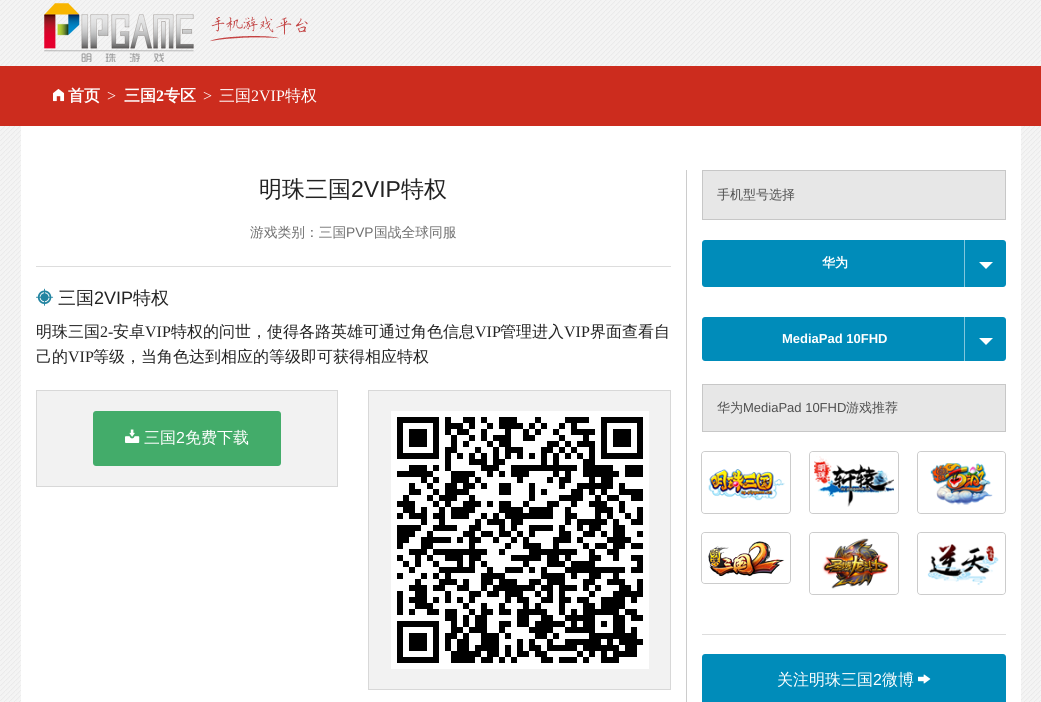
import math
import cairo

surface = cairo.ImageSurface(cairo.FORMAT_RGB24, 1041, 702)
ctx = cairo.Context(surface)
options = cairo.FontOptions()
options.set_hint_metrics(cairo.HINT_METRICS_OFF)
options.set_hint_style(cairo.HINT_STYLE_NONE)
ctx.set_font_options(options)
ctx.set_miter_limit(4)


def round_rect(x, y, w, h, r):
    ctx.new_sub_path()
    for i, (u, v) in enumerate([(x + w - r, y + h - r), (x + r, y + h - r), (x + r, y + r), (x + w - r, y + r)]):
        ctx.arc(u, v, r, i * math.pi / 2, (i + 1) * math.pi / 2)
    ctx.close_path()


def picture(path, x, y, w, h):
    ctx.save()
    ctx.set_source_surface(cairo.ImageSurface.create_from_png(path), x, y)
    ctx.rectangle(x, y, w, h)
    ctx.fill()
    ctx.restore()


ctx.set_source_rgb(1, 1, 1)
ctx.paint()
picture("img1.png", 0, 0, 1041, 702)
picture("img2.png", 44, 3, 264, 59)
ctx.set_source_rgb(0.8, 0.173, 0.118)
ctx.rectangle(0, 66, 1041, 60)
ctx.fill()
picture("img3.png", 53, 89, 12, 13)
ctx.select_font_face("WenQuanYi Zen Hei", cairo.FONT_SLANT_NORMAL, cairo.FONT_WEIGHT_BOLD)
ctx.set_font_size(16)
ctx.set_source_rgb(1, 1, 1)
ctx.move_to(68, 101)
ctx.show_text("首页")
ctx.select_font_face("Liberation Serif")
ctx.move_to(107, 101)
ctx.show_text(">")
ctx.select_font_face("WenQuanYi Zen Hei", cairo.FONT_SLANT_NORMAL, cairo.FONT_WEIGHT_BOLD)
ctx.move_to(124, 101)
ctx.show_text("三国")
ctx.select_font_face("Liberation Serif", cairo.FONT_SLANT_NORMAL, cairo.FONT_WEIGHT_BOLD)
ctx.move_to(156, 101)
ctx.show_text("2")
ctx.select_font_face("WenQuanYi Zen Hei", cairo.FONT_SLANT_NORMAL, cairo.FONT_WEIGHT_BOLD)
ctx.move_to(164, 101)
ctx.show_text("专区")
ctx.select_font_face("Liberation Serif")
ctx.move_to(203, 101)
ctx.show_text(">")
ctx.select_font_face("WenQuanYi Zen Hei Medium")
ctx.move_to(219, 101)
ctx.show_text("三国")
ctx.select_font_face("Liberation Serif")
ctx.move_to(251, 101)
ctx.show_text("2VIP")
ctx.select_font_face("WenQuanYi Zen Hei Medium")
ctx.move_to(285, 101)
ctx.show_text("特权")
ctx.rectangle(21, 126, 1000, 576)
ctx.fill()
ctx.set_source_rgb(0.8, 0.8, 0.8)
ctx.rectangle(686, 170, 1, 532)
ctx.fill()
ctx.set_font_size(23)
ctx.set_source_rgb(0.133, 0.133, 0.133)
ctx.move_to(259, 197)
ctx.show_text("明珠三国")
ctx.select_font_face("Liberation Sans")
ctx.move_to(351, 197)
ctx.show_text("2VIP")
ctx.select_font_face("WenQuanYi Zen Hei Medium")
ctx.move_to(401, 197)
ctx.show_text("特权")
ctx.set_font_size(13.75)
ctx.set_source_rgb(0.435, 0.435, 0.435)
ctx.move_to(250, 237)
ctx.show_text("游戏类别：三国")
ctx.select_font_face("Liberation Sans")
ctx.move_to(346, 237)
ctx.show_text("PVP")
ctx.select_font_face("WenQuanYi Zen Hei Medium")
ctx.move_to(374, 237)
ctx.show_text("国战全球同服")
ctx.set_source_rgb(0.867, 0.867, 0.867)
ctx.rectangle(36, 266, 635, 1)
ctx.fill()
picture("img4.png", 36, 288, 18, 18)
ctx.set_font_size(18)
ctx.set_source_rgb(0.133, 0.133, 0.133)
ctx.move_to(58, 304)
ctx.show_text("三国")
ctx.select_font_face("Liberation Sans")
ctx.move_to(94, 304)
ctx.show_text("2VIP")
ctx.select_font_face("WenQuanYi Zen Hei Medium")
ctx.move_to(133, 304)
ctx.show_text("特权")
ctx.set_font_size(16)
ctx.move_to(36, 337)
ctx.show_text("明珠三国")
ctx.select_font_face("Liberation Serif")
ctx.move_to(100, 337)
ctx.show_text("2-")
ctx.select_font_face("WenQuanYi Zen Hei Medium")
ctx.move_to(113, 337)
ctx.show_text("安卓")
ctx.select_font_face("Liberation Serif")
ctx.move_to(145, 337)
ctx.show_text("VIP")
ctx.select_font_face("WenQuanYi Zen Hei Medium")
ctx.move_to(171, 337)
ctx.show_text("特权的问世，使得各路英雄可通过角色信息")
ctx.select_font_face("Liberation Serif")
ctx.move_to(475, 337)
ctx.show_text("VIP")
ctx.select_font_face("WenQuanYi Zen Hei Medium")
ctx.move_to(500, 337)
ctx.show_text("管理进入")
ctx.select_font_face("Liberation Serif")
ctx.move_to(564, 337)
ctx.show_text("VIP")
ctx.select_font_face("WenQuanYi Zen Hei Medium")
ctx.move_to(590, 337)
ctx.show_text("界面查看自")
ctx.move_to(36, 362)
ctx.show_text("己的")
ctx.select_font_face("Liberation Serif")
ctx.move_to(68, 362)
ctx.show_text("VIP")
ctx.select_font_face("WenQuanYi Zen Hei Medium")
ctx.move_to(93, 362)
ctx.show_text("等级，当角色达到相应的等级即可获得相应特权")
ctx.set_source_rgb(0.949, 0.949, 0.949)
ctx.rectangle(36.5, 390.5, 301, 96)
ctx.fill_preserve()
ctx.set_source_rgb(0.847, 0.847, 0.847)
ctx.set_line_width(1)
ctx.stroke()
ctx.set_source_rgb(0.263, 0.675, 0.416)
round_rect(93, 411, 188, 55, 3)
ctx.fill()
picture("img5.png", 125, 429, 15, 14)
ctx.set_source_rgb(1, 1, 1)
ctx.move_to(144, 443)
ctx.show_text("三国")
ctx.select_font_face("Liberation Sans")
ctx.move_to(176, 443)
ctx.show_text("2")
ctx.select_font_face("WenQuanYi Zen Hei Medium")
ctx.move_to(185, 443)
ctx.show_text("免费下载")
ctx.set_source_rgb(0.949, 0.949, 0.949)
ctx.rectangle(368.5, 390.5, 302, 299)
ctx.fill_preserve()
ctx.set_source_rgb(0.847, 0.847, 0.847)
ctx.stroke()
picture("img6.png", 391, 411, 258, 258)
ctx.set_source_rgb(0.906, 0.906, 0.906)
ctx.rectangle(702.5, 170.5, 303, 49)
ctx.fill_preserve()
ctx.set_source_rgb(0.78, 0.78, 0.78)
ctx.stroke()
ctx.set_font_size(13)
ctx.set_source_rgb(0.31, 0.31, 0.31)
ctx.move_to(717, 199)
ctx.show_text("手机型号选择")
ctx.set_source_rgb(0, 0.549, 0.729)
round_rect(702, 240, 304, 47, 3)
ctx.fill()
ctx.select_font_face("WenQuanYi Zen Hei", cairo.FONT_SLANT_NORMAL, cairo.FONT_WEIGHT_BOLD)
ctx.set_source_rgb(1, 1, 1)
ctx.move_to(822, 267)
ctx.show_text("华为")
ctx.set_source_rgb(0.502, 0.776, 0.867)
ctx.rectangle(964, 240, 1, 47)
ctx.fill()
ctx.set_source_rgb(1, 1, 1)
ctx.new_path()
ctx.move_to(979, 262)
ctx.line_to(993, 262)
ctx.line_to(986, 269)
ctx.close_path()
ctx.fill()
ctx.set_source_rgb(0, 0.549, 0.729)
round_rect(702, 317, 304, 44, 3)
ctx.fill()
ctx.select_font_face("Liberation Sans", cairo.FONT_SLANT_NORMAL, cairo.FONT_WEIGHT_BOLD)
ctx.set_source_rgb(1, 1, 1)
ctx.move_to(782, 343)
ctx.show_text("MediaPad 10FHD")
ctx.set_source_rgb(0.502, 0.776, 0.867)
ctx.rectangle(964, 317, 1, 44)
ctx.fill()
ctx.set_source_rgb(1, 1, 1)
ctx.new_path()
ctx.move_to(979, 338)
ctx.line_to(993, 338)
ctx.line_to(986, 345)
ctx.close_path()
ctx.fill()
ctx.set_source_rgb(0.906, 0.906, 0.906)
ctx.rectangle(702.5, 384.5, 303, 47)
ctx.fill_preserve()
ctx.set_source_rgb(0.78, 0.78, 0.78)
ctx.stroke()
ctx.select_font_face("WenQuanYi Zen Hei Medium")
ctx.set_source_rgb(0.31, 0.31, 0.31)
ctx.move_to(717, 412)
ctx.show_text("华为")
ctx.select_font_face("Liberation Sans")
ctx.move_to(743, 412)
ctx.show_text("MediaPad 10FHD")
ctx.select_font_face("WenQuanYi Zen Hei Medium")
ctx.move_to(846, 412)
ctx.show_text("游戏推荐")
round_rect(701.5, 451.5, 89, 62, 3.5)
ctx.set_source_rgb(0.8, 0.8, 0.8)
ctx.stroke()
round_rect(704, 454, 84, 57, 1)
ctx.set_source_rgb(1, 1, 1)
ctx.set_line_width(4)
ctx.stroke()
picture("img7.png", 708, 469, 77, 32)
round_rect(809.5, 451.5, 89, 62, 3.5)
ctx.set_source_rgb(0.8, 0.8, 0.8)
ctx.set_line_width(1)
ctx.stroke()
round_rect(812, 454, 84, 57, 1)
ctx.set_source_rgb(1, 1, 1)
ctx.set_line_width(4)
ctx.stroke()
picture("img8.png", 814, 456, 80, 51)
round_rect(917.5, 451.5, 88, 62, 3.5)
ctx.set_source_rgb(0.8, 0.8, 0.8)
ctx.set_line_width(1)
ctx.stroke()
round_rect(920, 454, 83, 57, 1)
ctx.set_source_rgb(1, 1, 1)
ctx.set_line_width(4)
ctx.stroke()
picture("img9.png", 930, 463, 63, 42)
round_rect(701.5, 532.5, 89, 51, 3.5)
ctx.set_source_rgb(0.8, 0.8, 0.8)
ctx.set_line_width(1)
ctx.stroke()
round_rect(704, 535, 84, 46, 1)
ctx.set_source_rgb(1, 1, 1)
ctx.set_line_width(4)
ctx.stroke()
picture("img10.png", 708, 541, 77, 36)
round_rect(809.5, 532.5, 89, 62, 3.5)
ctx.set_source_rgb(0.8, 0.8, 0.8)
ctx.set_line_width(1)
ctx.stroke()
round_rect(812, 535, 84, 57, 1)
ctx.set_source_rgb(1, 1, 1)
ctx.set_line_width(4)
ctx.stroke()
picture("img11.png", 822, 538, 67, 51)
round_rect(917.5, 532.5, 88, 62, 3.5)
ctx.set_source_rgb(0.8, 0.8, 0.8)
ctx.set_line_width(1)
ctx.stroke()
round_rect(920, 535, 83, 57, 1)
ctx.set_source_rgb(1, 1, 1)
ctx.set_line_width(4)
ctx.stroke()
picture("img12.png", 927, 544, 72, 42)
ctx.set_source_rgb(0.867, 0.867, 0.867)
ctx.rectangle(702, 634, 304, 1)
ctx.fill()
ctx.set_source_rgb(0, 0.549, 0.729)
round_rect(702, 654, 304, 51, 3)
ctx.fill()
ctx.set_font_size(16)
ctx.set_source_rgb(1, 1, 1)
ctx.move_to(777, 685)
ctx.show_text("关注明珠三国")
ctx.select_font_face("Liberation Sans")
ctx.move_to(873, 685)
ctx.show_text("2")
ctx.select_font_face("WenQuanYi Zen Hei Medium")
ctx.move_to(882, 685)
ctx.show_text("微博")
picture("img13.png", 918, 674, 13, 10)
surface.write_to_png("page.png")
